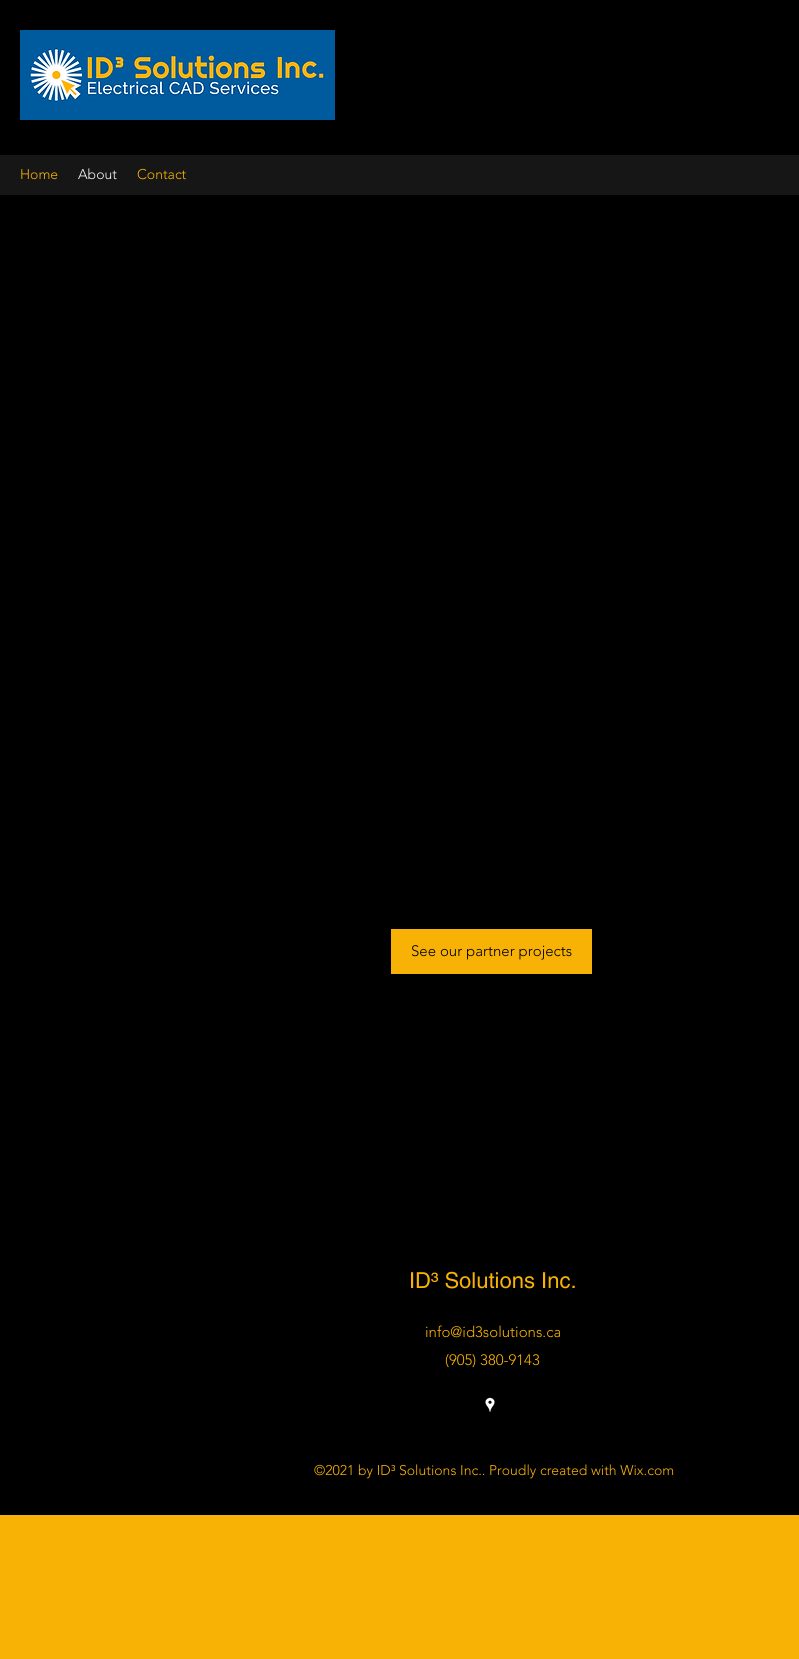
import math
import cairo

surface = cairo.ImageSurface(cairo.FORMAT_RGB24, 799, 1659)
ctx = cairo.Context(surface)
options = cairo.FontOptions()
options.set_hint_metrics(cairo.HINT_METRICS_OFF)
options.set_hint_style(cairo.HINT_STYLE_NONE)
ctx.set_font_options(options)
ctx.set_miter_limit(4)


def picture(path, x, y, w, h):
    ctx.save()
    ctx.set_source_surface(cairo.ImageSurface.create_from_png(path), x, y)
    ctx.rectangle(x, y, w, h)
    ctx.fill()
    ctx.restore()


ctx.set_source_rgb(0.969, 0.698, 0.024)
ctx.paint()
ctx.set_source_rgb(0, 0, 0)
ctx.rectangle(0, 0, 799, 155)
ctx.fill()
picture("img1.png", 20, 30, 315, 90)
ctx.set_source_rgb(0.086, 0.086, 0.086)
ctx.rectangle(0, 155, 799, 40)
ctx.fill()
ctx.select_font_face("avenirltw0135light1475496 Light")
ctx.set_font_size(14)
ctx.set_source_rgb(0.969, 0.698, 0.024)
ctx.move_to(20, 179)
ctx.show_text("Home")
ctx.set_source_rgb(0.957, 0.969, 0.976)
ctx.move_to(78, 179)
ctx.show_text("About")
ctx.set_source_rgb(0.969, 0.698, 0.024)
ctx.move_to(137, 179)
ctx.show_text("Contact")
ctx.set_source_rgb(0, 0, 0)
ctx.rectangle(0, 195, 799, 1320)
ctx.fill()
ctx.set_source_rgb(0.969, 0.698, 0.024)
ctx.rectangle(391, 929, 201, 45)
ctx.fill()
ctx.set_font_size(15)
ctx.set_source_rgb(0, 0, 0)
ctx.move_to(411, 956)
ctx.show_text("See our partner projects")
ctx.select_font_face("helvetica")
ctx.set_font_size(22)
ctx.set_source_rgb(0.969, 0.698, 0.024)
ctx.move_to(409, 1288)
ctx.show_text("ID³ Solutions Inc.")
ctx.select_font_face("avenirltw0135light1475496 Light")
ctx.set_font_size(15)
ctx.move_to(425, 1337)
ctx.show_text("info@id3solutions.ca")
ctx.move_to(445, 1365)
ctx.show_text("(905) 380-9143")
picture("img2.png", 485, 1397, 10, 15)
ctx.set_font_size(14)
ctx.move_to(314, 1475)
ctx.show_text("©2021 by ID³ Solutions Inc.. Proudly created with Wix.com")
surface.write_to_png("page.png")
